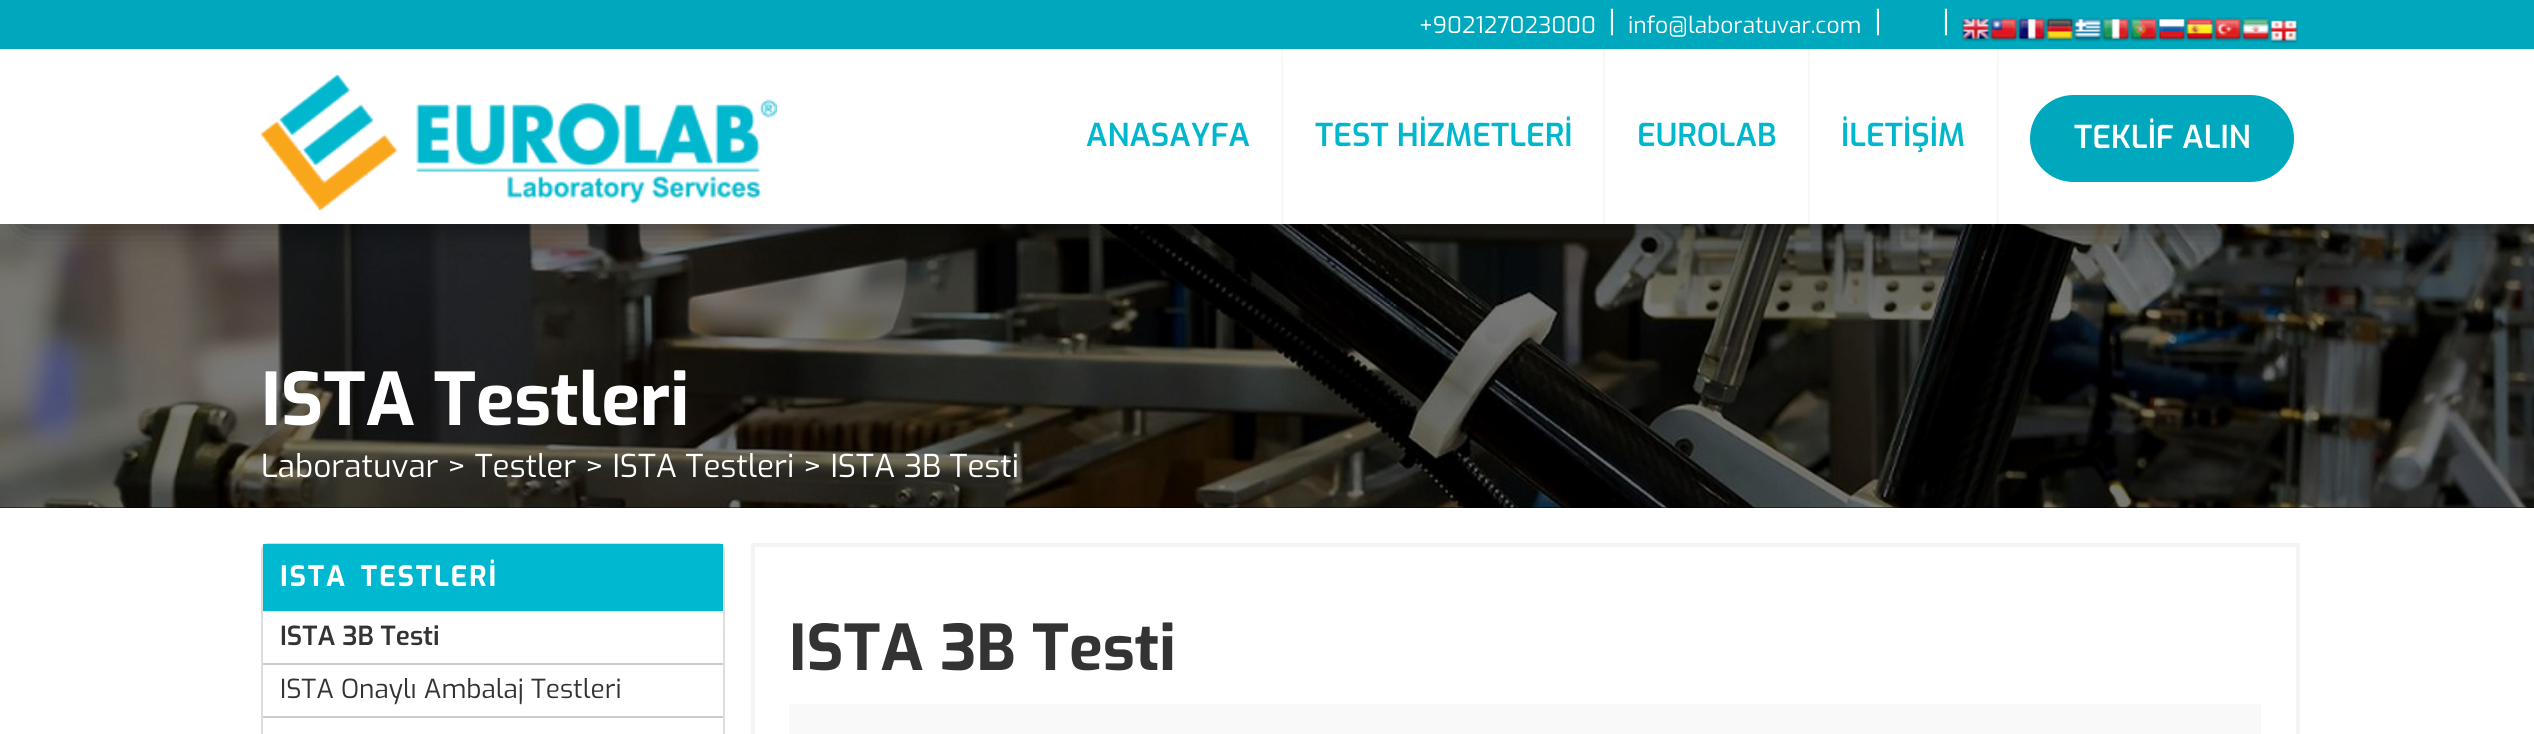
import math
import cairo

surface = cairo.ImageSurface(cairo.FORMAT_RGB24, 2534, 734)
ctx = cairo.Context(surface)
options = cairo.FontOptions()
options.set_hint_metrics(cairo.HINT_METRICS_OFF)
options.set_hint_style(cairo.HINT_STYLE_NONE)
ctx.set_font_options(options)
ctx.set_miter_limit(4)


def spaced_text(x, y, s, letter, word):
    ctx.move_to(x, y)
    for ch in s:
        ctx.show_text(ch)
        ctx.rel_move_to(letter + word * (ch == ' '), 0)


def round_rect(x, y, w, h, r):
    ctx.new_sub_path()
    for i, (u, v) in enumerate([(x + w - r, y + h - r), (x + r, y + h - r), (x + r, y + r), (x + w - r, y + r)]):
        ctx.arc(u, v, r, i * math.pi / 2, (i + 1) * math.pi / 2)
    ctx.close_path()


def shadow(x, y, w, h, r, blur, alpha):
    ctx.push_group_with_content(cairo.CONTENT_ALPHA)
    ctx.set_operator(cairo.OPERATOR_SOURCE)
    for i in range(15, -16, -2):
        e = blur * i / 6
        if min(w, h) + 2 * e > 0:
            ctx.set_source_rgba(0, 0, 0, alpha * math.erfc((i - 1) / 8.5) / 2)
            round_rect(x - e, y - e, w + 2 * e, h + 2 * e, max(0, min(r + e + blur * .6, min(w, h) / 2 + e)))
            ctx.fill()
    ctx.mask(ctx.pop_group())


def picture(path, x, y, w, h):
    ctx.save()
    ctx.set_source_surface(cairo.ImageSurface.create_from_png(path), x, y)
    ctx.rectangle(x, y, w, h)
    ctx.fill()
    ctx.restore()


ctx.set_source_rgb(1, 1, 1)
ctx.paint()
ctx.set_source_rgb(0, 0, 0)
ctx.rectangle(0, 507, 2534, 1)
ctx.fill()
picture("img14.png", 0, 224, 2534, 284)
ctx.set_source_rgb(0, 0, 0)
shadow(25, 46, 2485, 175, 0, 17.5, 0.75)
ctx.set_source_rgb(1, 1, 1)
ctx.rectangle(0, 49, 2534, 175)
ctx.fill()
ctx.set_source_rgb(0, 0.659, 0.745)
ctx.rectangle(0, 0, 2534, 49)
ctx.fill()
ctx.select_font_face("Exo")
ctx.set_font_size(22.75)
ctx.set_source_rgb(1, 1, 1)
ctx.move_to(1419, 33)
ctx.show_text("+902127023000")
ctx.set_font_size(31.5)
ctx.move_to(1608, 33)
ctx.show_text("|")
ctx.set_font_size(22.75)
ctx.move_to(1628, 33)
ctx.show_text("info@laboratuvar.com")
ctx.set_font_size(31.5)
ctx.move_to(1874, 33)
ctx.show_text("|")
ctx.move_to(1942, 33)
ctx.show_text("|")
picture("img1.png", 1961, 17, 29, 25)
picture("img2.png", 1989, 17, 29, 25)
picture("img3.png", 2017, 17, 29, 25)
picture("img4.png", 2045, 17, 29, 25)
picture("img5.png", 2073, 17, 29, 25)
picture("img6.png", 2101, 17, 29, 25)
picture("img7.png", 2129, 17, 29, 25)
picture("img8.png", 2157, 17, 29, 25)
picture("img9.png", 2185, 17, 29, 25)
picture("img10.png", 2213, 17, 29, 25)
picture("img11.png", 2241, 17, 29, 25)
picture("img12.png", 2269, 19, 29, 25)
picture("img13.png", 260, 74, 517, 136)
ctx.set_source_rgb(0.965, 0.965, 0.965)
ctx.rectangle(1281, 49, 2, 175)
ctx.fill()
ctx.select_font_face("Exo SemiBold")
ctx.set_source_rgb(0, 0.718, 0.808)
ctx.move_to(1086, 146)
ctx.show_text("ANASAYFA")
ctx.set_source_rgb(0.965, 0.965, 0.965)
ctx.rectangle(1603, 49, 2, 175)
ctx.fill()
ctx.set_source_rgb(0, 0.718, 0.808)
ctx.move_to(1315, 146)
ctx.show_text("TEST HİZMETLERİ")
ctx.set_source_rgb(0.965, 0.965, 0.965)
ctx.rectangle(1808, 49, 2, 175)
ctx.fill()
ctx.set_source_rgb(0, 0.718, 0.808)
ctx.move_to(1637, 146)
ctx.show_text("EUROLAB")
ctx.set_source_rgb(0.965, 0.965, 0.965)
ctx.rectangle(1997, 49, 2, 175)
ctx.fill()
ctx.set_source_rgb(0, 0.718, 0.808)
ctx.move_to(1841, 146)
ctx.show_text("İLETİŞİM")
ctx.set_source_rgb(0, 0.659, 0.745)
round_rect(2030, 95, 264, 87, 43.5)
ctx.fill()
ctx.set_source_rgb(1, 1, 1)
ctx.move_to(2074, 148)
ctx.show_text("TEKLİF ALIN")
ctx.select_font_face("Exo", cairo.FONT_SLANT_NORMAL, cairo.FONT_WEIGHT_BOLD)
ctx.set_font_size(72.5)
spaced_text(261, 425, "ISTA Testleri", -0.25, 0)
ctx.select_font_face("Exo")
ctx.set_font_size(31.5)
ctx.move_to(261, 477)
ctx.show_text("Laboratuvar > Testler > ISTA Testleri > ISTA 3B Testi")
round_rect(262, 544, 462, 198, 6)
ctx.set_source_rgb(0.867, 0.867, 0.867)
ctx.stroke()
ctx.set_source_rgb(0, 0.725, 0.82)
ctx.rectangle(263, 544, 460, 67)
ctx.fill()
ctx.set_source_rgb(0.949, 0.949, 0.949)
ctx.rectangle(263, 611, 460, 2)
ctx.fill()
ctx.select_font_face("Exo", cairo.FONT_SLANT_NORMAL, cairo.FONT_WEIGHT_BOLD)
ctx.set_font_size(28)
ctx.set_source_rgb(1, 1, 1)
spaced_text(280, 586, "ISTA TESTLERİ", 1.75, 5)
ctx.set_source_rgb(0.8, 0.8, 0.8)
ctx.rectangle(263, 663, 460, 2)
ctx.fill()
ctx.select_font_face("Exo SemiBold")
ctx.set_font_size(26.25)
ctx.set_source_rgb(0.2, 0.2, 0.2)
ctx.move_to(280, 645)
ctx.show_text("ISTA 3B Testi")
ctx.set_source_rgb(0.8, 0.8, 0.8)
ctx.rectangle(263, 716, 460, 2)
ctx.fill()
ctx.select_font_face("Exo")
ctx.set_source_rgb(0.2, 0.2, 0.2)
ctx.move_to(280, 698)
ctx.show_text("ISTA Onaylı Ambalaj Testleri")
ctx.rectangle(753, 545, 1545, 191)
ctx.set_source_rgb(0.957, 0.957, 0.957)
ctx.set_line_width(4)
ctx.stroke()
ctx.select_font_face("Exo", cairo.FONT_SLANT_NORMAL, cairo.FONT_WEIGHT_BOLD)
ctx.set_font_size(63)
ctx.set_source_rgb(0.2, 0.2, 0.2)
ctx.move_to(789, 670)
ctx.show_text("ISTA 3B Testi")
ctx.set_source_rgb(0.976, 0.976, 0.976)
ctx.rectangle(789, 704, 1472, 30)
ctx.fill()
surface.write_to_png("page.png")
